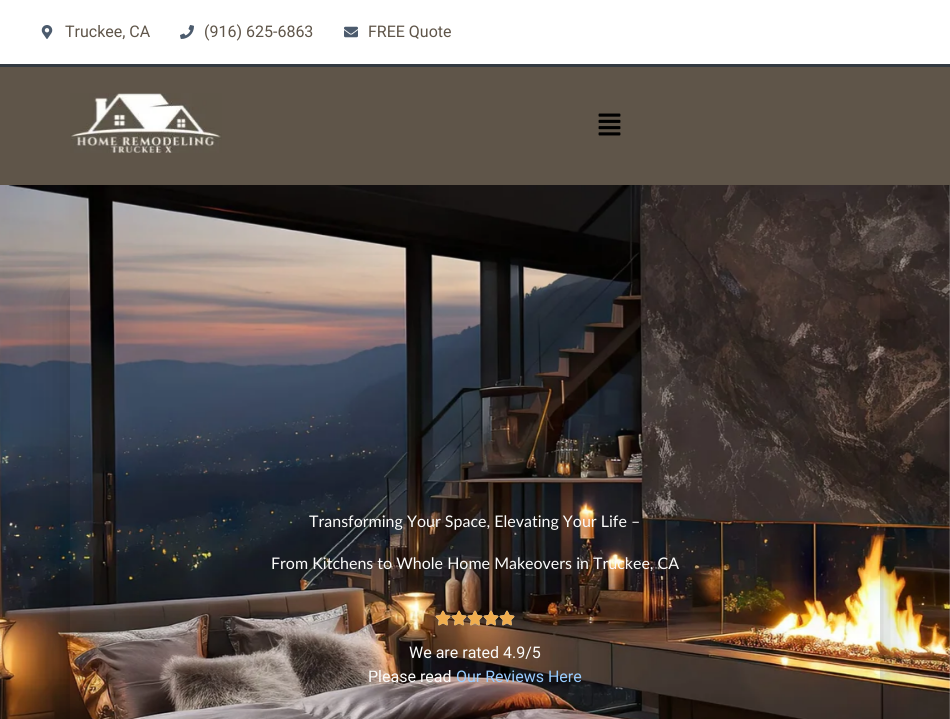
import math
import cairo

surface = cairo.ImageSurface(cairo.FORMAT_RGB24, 950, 719)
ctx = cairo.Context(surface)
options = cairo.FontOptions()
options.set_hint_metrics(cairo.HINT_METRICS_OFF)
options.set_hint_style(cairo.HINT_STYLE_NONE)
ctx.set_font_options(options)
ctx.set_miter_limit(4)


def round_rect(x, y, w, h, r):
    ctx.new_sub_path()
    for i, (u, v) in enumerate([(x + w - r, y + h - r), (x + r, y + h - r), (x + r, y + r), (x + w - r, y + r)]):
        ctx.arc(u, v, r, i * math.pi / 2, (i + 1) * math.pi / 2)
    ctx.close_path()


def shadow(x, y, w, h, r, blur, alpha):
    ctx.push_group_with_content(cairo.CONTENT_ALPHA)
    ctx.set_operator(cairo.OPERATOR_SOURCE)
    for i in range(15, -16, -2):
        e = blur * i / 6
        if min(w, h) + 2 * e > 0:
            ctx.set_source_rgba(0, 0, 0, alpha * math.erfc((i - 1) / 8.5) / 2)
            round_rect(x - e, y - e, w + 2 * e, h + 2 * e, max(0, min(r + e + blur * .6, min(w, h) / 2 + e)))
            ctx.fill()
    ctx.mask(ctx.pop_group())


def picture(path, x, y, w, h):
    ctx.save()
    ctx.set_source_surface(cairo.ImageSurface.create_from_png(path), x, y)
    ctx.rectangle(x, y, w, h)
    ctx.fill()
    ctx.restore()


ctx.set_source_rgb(1, 1, 1)
ctx.paint()
picture("img1.png", 41, 25, 12, 14)
ctx.select_font_face("Roboto")
ctx.set_font_size(16)
ctx.set_source_rgb(0.373, 0.333, 0.286)
ctx.move_to(65, 37)
ctx.show_text("Truckee, CA")
picture("img2.png", 180, 25, 14, 14)
ctx.move_to(204, 37)
ctx.show_text("(916) 625-6863")
picture("img3.png", 344, 26, 14, 12)
ctx.move_to(368, 37)
ctx.show_text("FREE Quote")
ctx.rectangle(0, 67, 950, 118)
ctx.fill()
ctx.set_source_rgb(0.2, 0.227, 0.255)
ctx.rectangle(0, 64, 950, 3)
ctx.fill()
picture("img4.png", 70, 93, 152, 60)
picture("img5.png", 598, 113, 23, 23)
picture("img6.png", 0, 185, 950, 534)
ctx.save()
ctx.set_fill_rule(cairo.FILL_RULE_EVEN_ODD)
ctx.new_path()
ctx.move_to(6, 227)
ctx.line_to(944, 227)
ctx.line_to(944, 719)
ctx.line_to(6, 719)
ctx.close_path()
ctx.move_to(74, 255)
ctx.line_to(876, 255)
ctx.curve_to(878, 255, 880, 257, 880, 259)
ctx.line_to(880, 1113)
ctx.curve_to(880, 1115, 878, 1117, 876, 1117)
ctx.line_to(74, 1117)
ctx.curve_to(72, 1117, 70, 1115, 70, 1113)
ctx.line_to(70, 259)
ctx.curve_to(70, 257, 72, 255, 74, 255)
ctx.close_path()
ctx.clip()
ctx.set_source_rgb(0, 0, 0)
shadow(70, 291, 810, 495, 4, 21, 0.26)
ctx.restore()
ctx.select_font_face("Lato")
ctx.set_source_rgb(0.984, 0.984, 0.98)
ctx.move_to(309, 527)
ctx.show_text("Transforming Your Space, Elevating Your Life –")
ctx.move_to(271, 569)
ctx.show_text("From Kitchens to Whole Home Makeovers in Truckee, CA")
picture("img7.png", 435, 610, 16, 16)
picture("img8.png", 435, 610, 16, 16)
picture("img9.png", 451, 610, 16, 16)
picture("img10.png", 451, 610, 16, 16)
picture("img11.png", 467, 610, 16, 16)
picture("img12.png", 467, 610, 16, 16)
picture("img13.png", 483, 610, 16, 16)
picture("img14.png", 483, 610, 16, 16)
picture("img15.png", 499, 610, 16, 16)
picture("img16.png", 499, 610, 16, 16)
ctx.select_font_face("Roboto")
ctx.move_to(409, 658)
ctx.show_text("We are rated 4.9/5")
ctx.move_to(368, 682)
ctx.show_text("Please read")
ctx.set_source_rgb(0.6, 0.8, 1)
ctx.move_to(456, 682)
ctx.show_text("Our Reviews Here")
surface.write_to_png("page.png")
